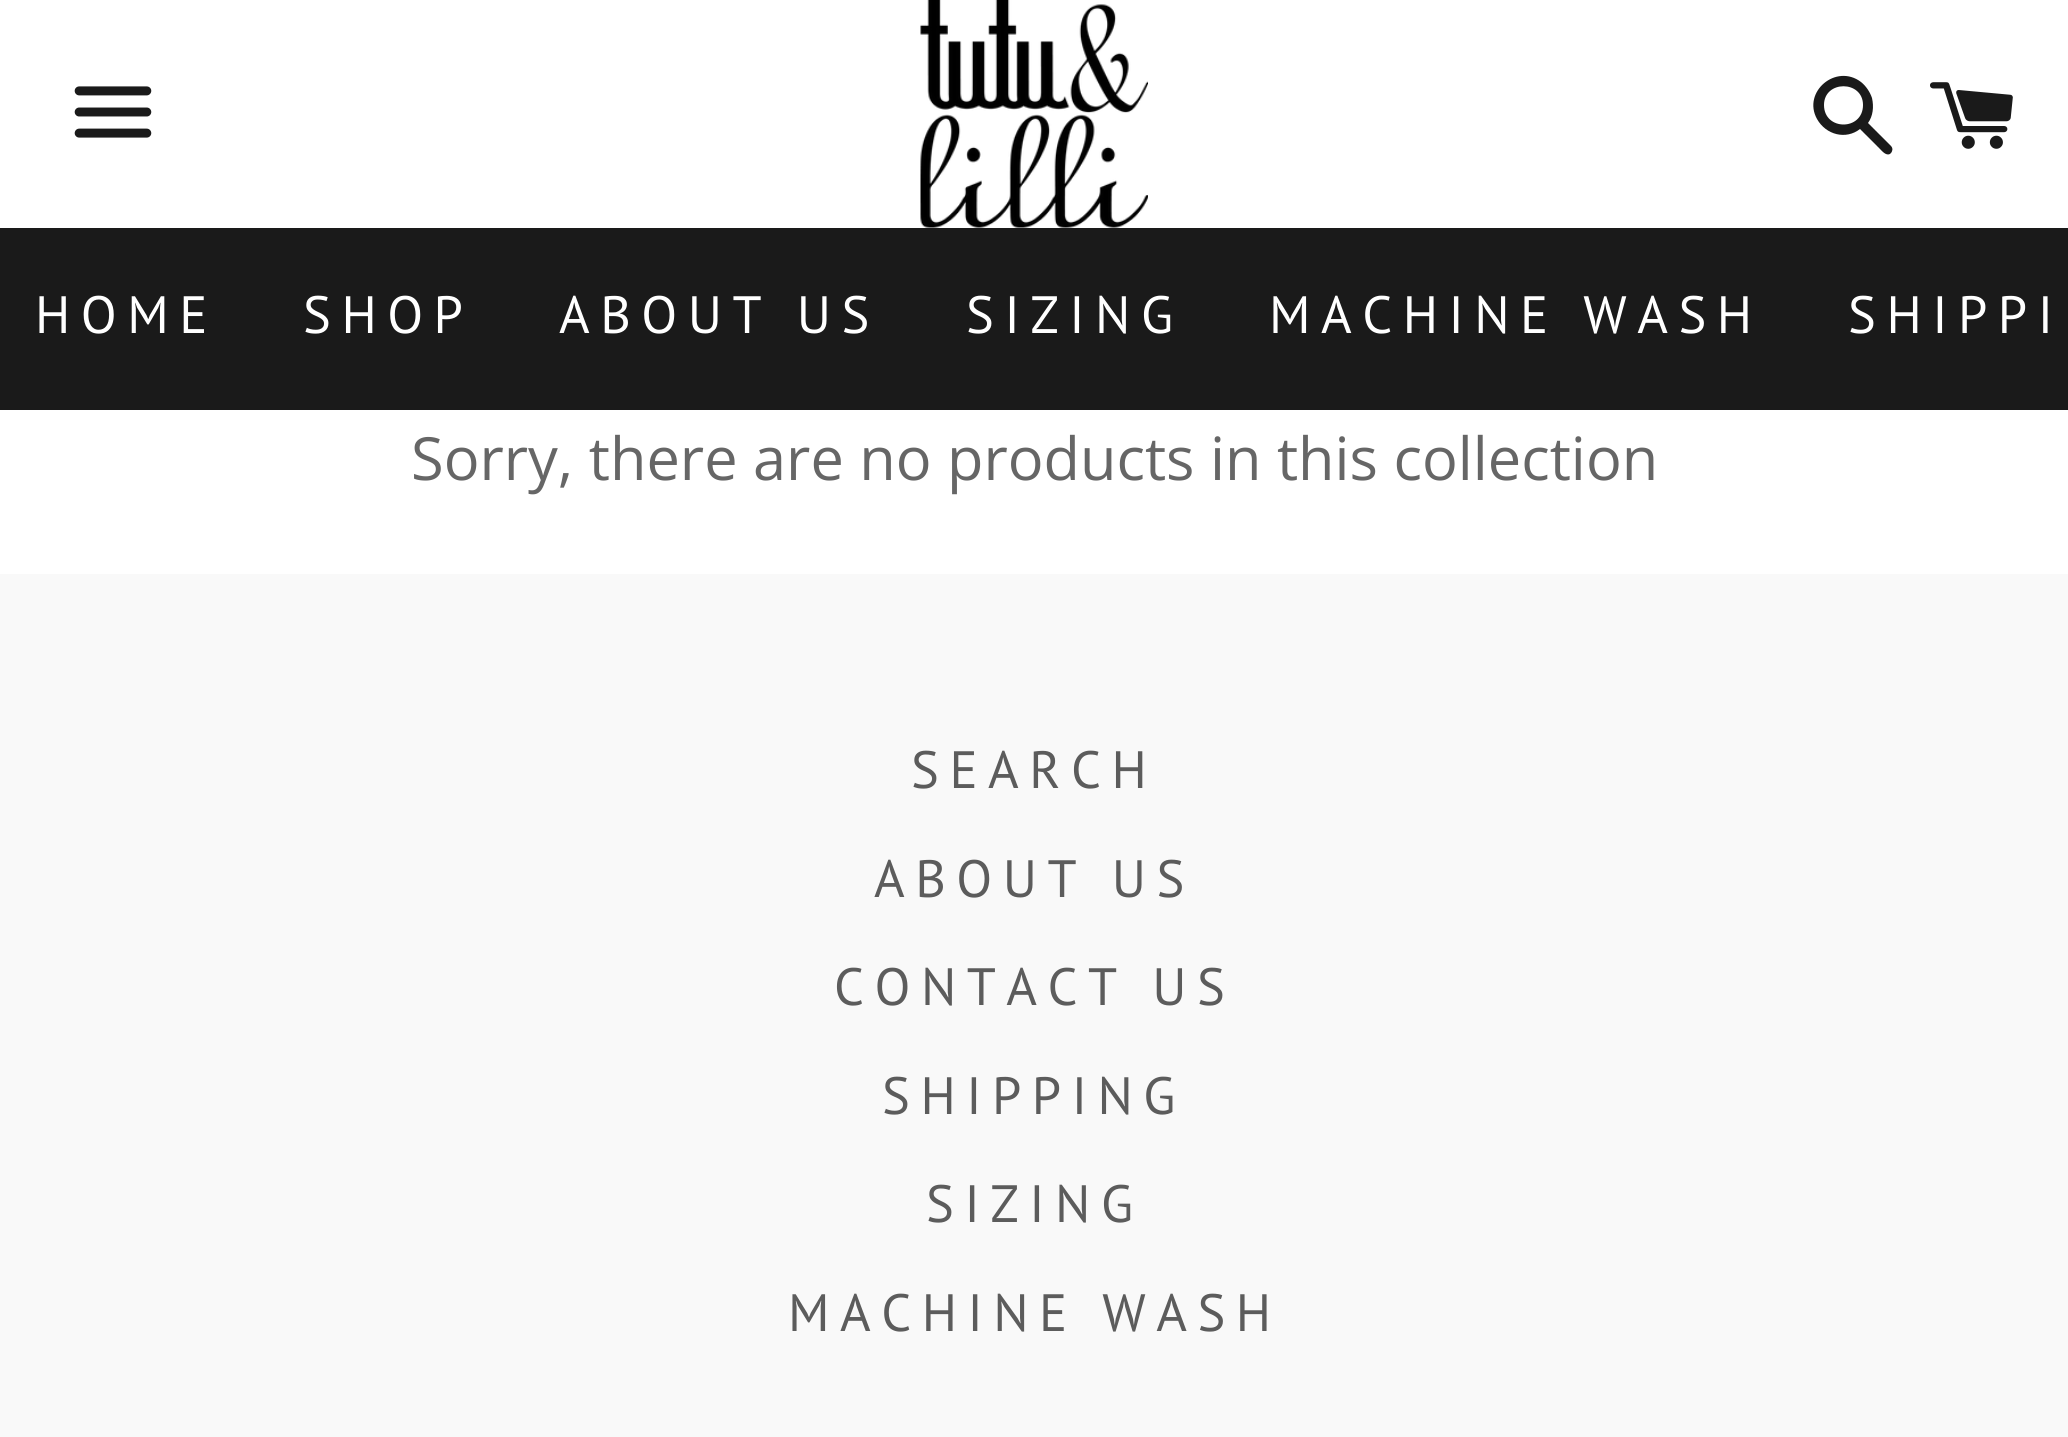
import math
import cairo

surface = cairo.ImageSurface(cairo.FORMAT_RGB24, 2068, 1437)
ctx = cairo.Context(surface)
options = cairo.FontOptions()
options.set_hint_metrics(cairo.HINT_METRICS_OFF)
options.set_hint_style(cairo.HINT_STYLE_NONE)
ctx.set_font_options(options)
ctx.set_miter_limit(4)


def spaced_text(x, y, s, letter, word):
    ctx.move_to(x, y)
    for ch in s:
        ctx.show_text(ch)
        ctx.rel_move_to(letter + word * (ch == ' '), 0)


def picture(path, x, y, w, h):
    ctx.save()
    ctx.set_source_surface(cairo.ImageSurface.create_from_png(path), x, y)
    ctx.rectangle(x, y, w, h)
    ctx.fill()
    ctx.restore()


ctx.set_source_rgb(1, 1, 1)
ctx.paint()
picture("img1.png", 74, 86, 78, 52)
picture("img2.png", 920, 0, 228, 228)
ctx.set_source_rgb(0.102, 0.102, 0.102)
ctx.new_path()
ctx.move_to(1891, 146)
ctx.line_to(1868, 123)
ctx.curve_to(1873, 116, 1874, 107, 1872, 98)
ctx.curve_to(1870, 92, 1866, 86, 1861, 82)
ctx.curve_to(1836, 63, 1802, 92, 1817, 119)
ctx.curve_to(1826, 135, 1846, 140, 1860, 129)
ctx.line_to(1880, 149)
ctx.curve_to(1882, 151, 1886, 156, 1890, 154)
ctx.curve_to(1891, 153, 1892, 152, 1892, 151)
ctx.curve_to(1893, 149, 1892, 147, 1891, 146)
ctx.close_path()
ctx.move_to(1824, 105)
ctx.curve_to(1824, 80, 1863, 80, 1863, 105)
ctx.curve_to(1863, 131, 1824, 131, 1824, 105)
ctx.close_path()
ctx.fill()
picture("img3.png", 1930, 82, 83, 67)
ctx.rectangle(0, 228, 2068, 182)
ctx.fill()
ctx.select_font_face("PT Sans")
ctx.set_font_size(52.5)
ctx.set_source_rgb(1, 1, 1)
spaced_text(35, 333, "HOME", 10.5, 0)
spaced_text(303, 333, "SHOP", 10.5, 0)
spaced_text(559, 333, "ABOUT US", 10.5, 0)
spaced_text(966, 333, "SIZING", 10.5, 0)
spaced_text(1269, 333, "MACHINE WASH", 10.5, 0)
spaced_text(1848, 333, "SHIPPI", 10.5, 0)
ctx.select_font_face("Open Sans")
ctx.set_font_size(59.5)
ctx.set_source_rgb(0.4, 0.4, 0.4)
ctx.move_to(411, 480)
ctx.show_text("Sorry, there are no products in this collection")
ctx.set_source_rgb(0.976, 0.976, 0.976)
ctx.rectangle(0, 574, 2068, 863)
ctx.fill()
ctx.select_font_face("PT Sans")
ctx.set_font_size(52.5)
ctx.set_source_rgb(0.361, 0.361, 0.361)
spaced_text(911, 788, "SEARCH", 10.5, 0)
spaced_text(874, 897, "ABOUT US", 10.5, 0)
spaced_text(834, 1005, "CONTACT US", 10.5, 0)
spaced_text(882, 1114, "SHIPPING", 10.5, 0)
spaced_text(926, 1222, "SIZING", 10.5, 0)
spaced_text(788, 1331, "MACHINE WASH", 10.5, 0)
surface.write_to_png("page.png")
